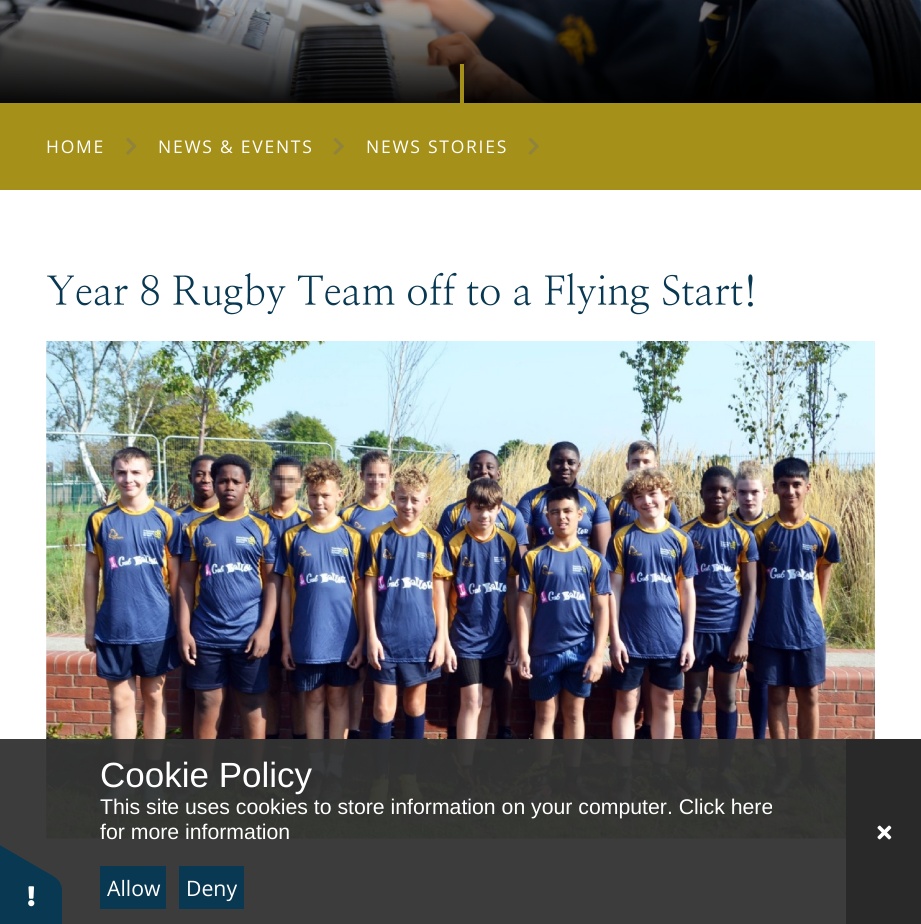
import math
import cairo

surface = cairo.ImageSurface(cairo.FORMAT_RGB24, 921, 924)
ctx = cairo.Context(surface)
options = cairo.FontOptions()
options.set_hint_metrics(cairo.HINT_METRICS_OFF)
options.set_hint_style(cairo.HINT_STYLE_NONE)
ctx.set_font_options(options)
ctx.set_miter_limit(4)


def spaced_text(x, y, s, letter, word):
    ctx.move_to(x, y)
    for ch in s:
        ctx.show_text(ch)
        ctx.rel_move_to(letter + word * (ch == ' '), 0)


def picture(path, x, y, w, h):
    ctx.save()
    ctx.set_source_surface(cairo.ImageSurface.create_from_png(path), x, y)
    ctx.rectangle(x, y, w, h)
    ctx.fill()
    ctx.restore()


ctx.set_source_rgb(1, 1, 1)
ctx.paint()
picture("img1.png", 0, 0, 921, 103)
gradient = cairo.LinearGradient(461, -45, 461, 103)
gradient.add_color_stop_rgba(0, 0, 0, 0, 0)
gradient.add_color_stop_rgba(1, 0, 0, 0, 0.95)
ctx.set_source(gradient)
ctx.rectangle(0, 0, 921, 103)
ctx.fill()
ctx.set_source_rgb(0.647, 0.565, 0.098)
ctx.rectangle(460, 64, 4, 39)
ctx.fill()
ctx.rectangle(0, 103, 921, 87)
ctx.fill()
ctx.select_font_face("Open Sans")
ctx.set_font_size(17.5)
ctx.set_source_rgb(1, 1, 1)
spaced_text(46, 153, "HOME", 1.75, 0)
picture("img2.png", 126, 137, 11, 18)
spaced_text(158, 153, "NEWS & EVENTS", 1.75, 0)
picture("img3.png", 333, 137, 11, 18)
spaced_text(366, 153, "NEWS STORIES", 1.75, 0)
picture("img3.png", 528, 137, 11, 18)
ctx.select_font_face("NanumMyeongjo")
ctx.set_font_size(40)
ctx.set_source_rgb(0.035, 0.22, 0.322)
ctx.move_to(46, 305)
ctx.show_text("Year 8 Rugby Team off to a Flying Start!")
picture("img4.png", 46, 341, 829, 498)
ctx.set_source_rgba(0.2, 0.2, 0.2, 0.95)
ctx.rectangle(0, 739, 846, 185)
ctx.fill()
ctx.set_source_rgb(0.035, 0.22, 0.322)
ctx.new_path()
ctx.move_to(62, 891)
ctx.line_to(62, 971)
ctx.curve_to(62, 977, 60, 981, 57, 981)
ctx.line_to(-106, 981)
ctx.curve_to(-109, 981, -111, 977, -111, 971)
ctx.line_to(-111, 891)
ctx.curve_to(-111, 886, -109, 881, -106, 881)
ctx.line_to(57, 881)
ctx.curve_to(60, 881, 62, 886, 62, 891)
ctx.close_path()
ctx.fill()
ctx.new_path()
ctx.move_to(-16, 836)
ctx.line_to(53, 876)
ctx.curve_to(58, 879, 61, 883, 60, 885)
ctx.line_to(-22, 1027)
ctx.curve_to(-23, 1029, -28, 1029, -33, 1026)
ctx.line_to(-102, 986)
ctx.curve_to(-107, 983, -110, 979, -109, 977)
ctx.line_to(-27, 835)
ctx.curve_to(-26, 833, -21, 833, -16, 836)
ctx.close_path()
ctx.fill()
picture("img5.png", 28, 886, 7, 21)
ctx.select_font_face("Liberation Sans")
ctx.set_font_size(35)
ctx.set_source_rgb(1, 1, 1)
ctx.move_to(100, 787)
ctx.show_text("Cookie Policy")
ctx.set_font_size(21.25)
ctx.move_to(100, 814)
ctx.show_text("This site uses cookies to store information on your computer. Click here")
ctx.move_to(100, 839)
ctx.show_text("for more information")
ctx.set_source_rgb(0.035, 0.22, 0.322)
ctx.rectangle(100, 866, 66, 43)
ctx.fill()
ctx.select_font_face("Open Sans")
ctx.set_source_rgb(1, 1, 1)
ctx.move_to(107, 896)
ctx.show_text("Allow")
ctx.set_source_rgb(0.035, 0.22, 0.322)
ctx.rectangle(179, 866, 65, 43)
ctx.fill()
ctx.set_source_rgb(1, 1, 1)
ctx.move_to(186, 896)
ctx.show_text("Deny")
ctx.set_source_rgb(0.161, 0.161, 0.161)
ctx.rectangle(846, 739, 75, 185)
ctx.fill()
picture("img6.png", 877, 825, 15, 15)
surface.write_to_png("page.png")
